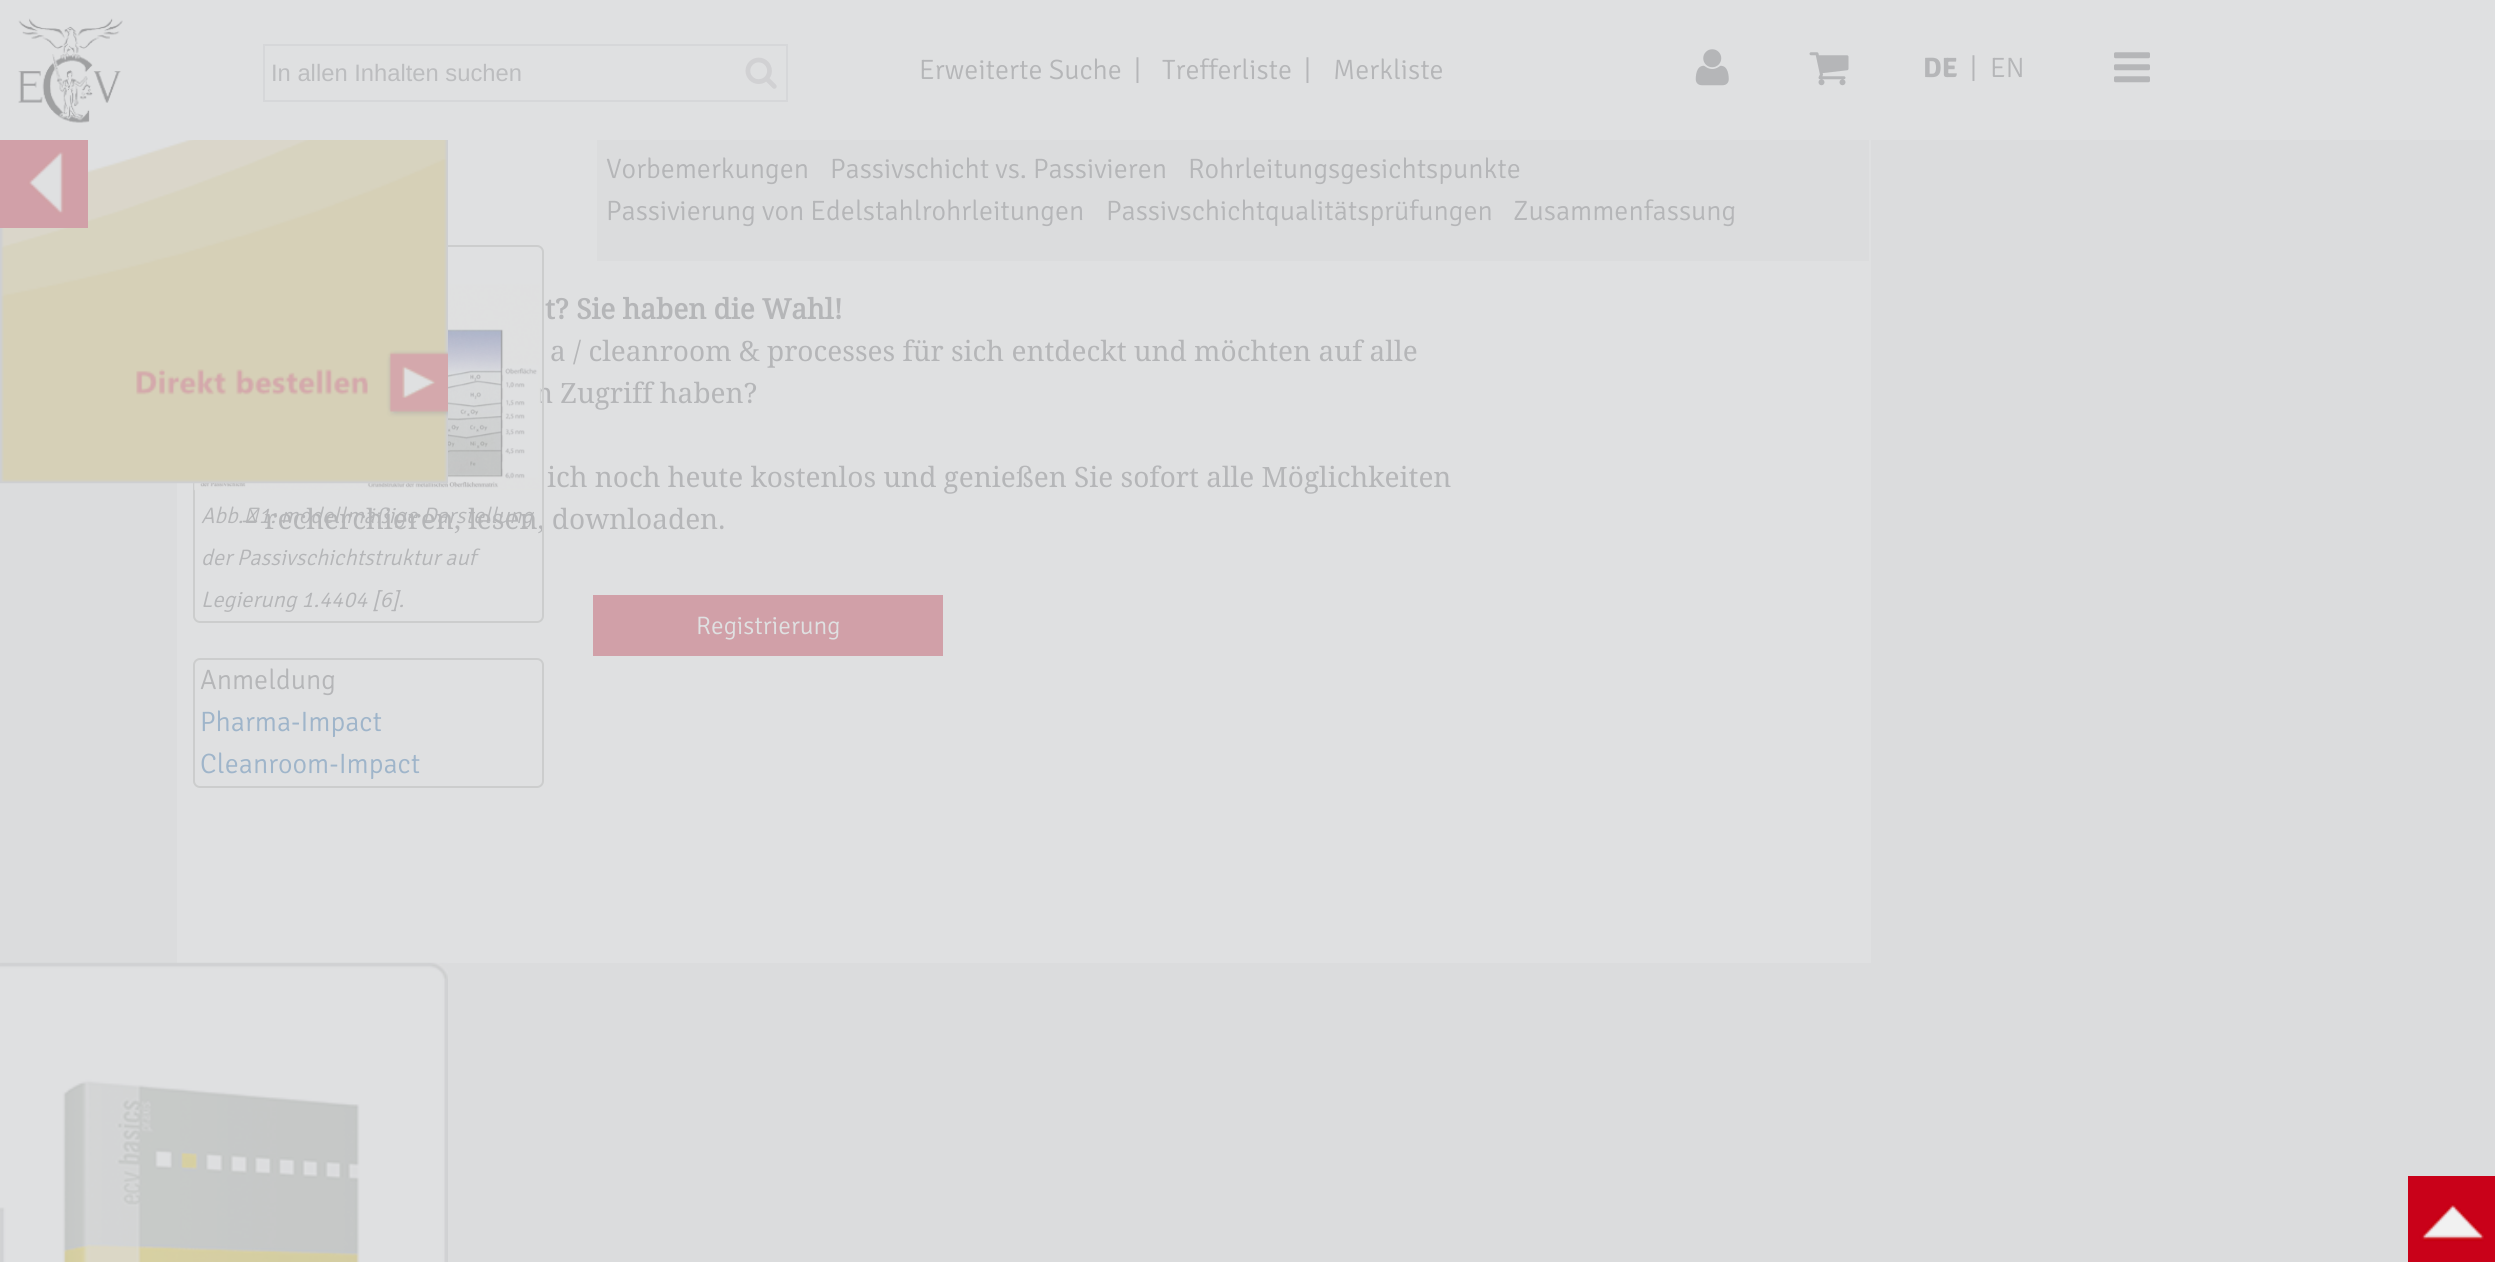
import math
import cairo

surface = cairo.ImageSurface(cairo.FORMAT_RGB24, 2495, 1262)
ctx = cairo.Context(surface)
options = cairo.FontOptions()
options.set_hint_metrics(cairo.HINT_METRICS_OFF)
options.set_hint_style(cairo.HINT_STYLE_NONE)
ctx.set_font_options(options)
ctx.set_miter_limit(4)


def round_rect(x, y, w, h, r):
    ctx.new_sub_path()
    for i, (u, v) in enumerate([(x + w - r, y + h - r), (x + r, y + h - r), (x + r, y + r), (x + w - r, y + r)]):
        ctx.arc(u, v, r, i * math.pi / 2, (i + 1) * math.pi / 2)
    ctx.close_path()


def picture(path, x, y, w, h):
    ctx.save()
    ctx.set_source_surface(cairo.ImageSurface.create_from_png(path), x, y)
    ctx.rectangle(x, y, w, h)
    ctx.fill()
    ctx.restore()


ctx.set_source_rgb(0.859, 0.863, 0.867)
ctx.paint()
ctx.set_source_rgb(0.875, 0.878, 0.882)
ctx.rectangle(0, 0, 2495, 140)
ctx.fill()
picture("img1.png", 18, 18, 105, 105)
ctx.rectangle(264, 45, 523, 56)
ctx.set_source_rgb(0.839, 0.843, 0.851)
ctx.stroke()
ctx.select_font_face("Liberation Sans")
ctx.set_font_size(23.75)
ctx.set_source_rgb(0.737, 0.741, 0.749)
ctx.move_to(271, 81)
ctx.show_text("In allen Inhalten suchen")
picture("img2.png", 745, 57, 32, 32)
ctx.select_font_face("Signika Light")
ctx.set_font_size(28)
ctx.set_source_rgb(0.71, 0.714, 0.722)
ctx.move_to(919, 79)
ctx.show_text("Erweiterte Suche")
ctx.move_to(1134, 79)
ctx.show_text("|")
ctx.move_to(1162, 79)
ctx.show_text("Trefferliste")
ctx.move_to(1304, 79)
ctx.show_text("|")
ctx.move_to(1333, 79)
ctx.show_text("Merkliste")
picture("img3.png", 1695, 49, 34, 37)
picture("img4.png", 1809, 52, 40, 34)
ctx.select_font_face("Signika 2 Light")
ctx.move_to(1923, 77)
ctx.show_text("DE")
ctx.select_font_face("Signika Light")
ctx.move_to(1970, 77)
ctx.show_text("|")
ctx.move_to(1990, 77)
ctx.show_text("EN")
picture("img5.png", 2114, 52, 36, 31)
ctx.set_source_rgb(0.875, 0.878, 0.882)
ctx.rectangle(177, 140, 1694, 823)
ctx.fill()
ctx.select_font_face("Noto Serif")
ctx.set_source_rgb(0.71, 0.714, 0.722)
ctx.move_to(535, 403)
ctx.show_text("n Zugriff haben?")
ctx.move_to(243, 529)
ctx.show_text("– recherchieren, lesen, downloaden.")
round_rect(194, 246, 349, 376, 6)
ctx.set_source_rgb(0.8, 0.804, 0.804)
ctx.stroke()
picture("img9.png", 194, 283, 348, 208)
picture("img6.png", 0, 140, 448, 344)
picture("img7.png", 0, 962, 448, 300)
picture("img8.png", 0, 140, 88, 88)
ctx.set_source_rgb(0.859, 0.863, 0.867)
ctx.rectangle(597, 140, 1272, 121)
ctx.fill()
ctx.select_font_face("Signika Light")
ctx.set_source_rgb(0.71, 0.714, 0.722)
ctx.move_to(606, 178)
ctx.show_text("Vorbemerkungen")
ctx.move_to(830, 178)
ctx.show_text("Passivschicht vs. Passivieren")
ctx.move_to(1188, 178)
ctx.show_text("Rohrleitungsgesichtspunkte")
ctx.move_to(606, 220)
ctx.show_text("Passivierung von Edelstahlrohrleitungen")
ctx.move_to(1106, 220)
ctx.show_text("Passivschichtqualitätsprüfungen")
ctx.move_to(1513, 220)
ctx.show_text("Zusammenfassung")
ctx.select_font_face("Noto Serif", cairo.FONT_SLANT_NORMAL, cairo.FONT_WEIGHT_BOLD)
ctx.move_to(545, 319)
ctx.show_text("t? Sie haben die Wahl!")
ctx.select_font_face("Noto Serif")
ctx.move_to(550, 361)
ctx.show_text("a / cleanroom & processes für sich entdeckt und möchten auf alle")
ctx.move_to(547, 487)
ctx.show_text("ich noch heute kostenlos und genießen Sie sofort alle Möglichkeiten")
ctx.set_source_rgb(0.82, 0.627, 0.659)
ctx.rectangle(593, 595, 350, 61)
ctx.fill()
ctx.select_font_face("Signika Light")
ctx.set_font_size(25.25)
ctx.set_source_rgb(0.875, 0.878, 0.882)
ctx.move_to(696, 634)
ctx.show_text("Registrierung")
ctx.select_font_face("Signika Light", cairo.FONT_SLANT_ITALIC)
ctx.set_font_size(22.4)
ctx.set_source_rgb(0.71, 0.714, 0.722)
ctx.move_to(201, 523)
ctx.show_text("Abb. 1: modellmäßige Darstellung")
ctx.move_to(201, 565)
ctx.show_text("der Passivschichtstruktur auf")
ctx.move_to(201, 607)
ctx.show_text("Legierung 1.4404 [6].")
round_rect(194, 659, 349, 128, 6)
ctx.set_source_rgb(0.8, 0.804, 0.804)
ctx.stroke()
ctx.select_font_face("Signika Light")
ctx.set_font_size(28)
ctx.set_source_rgb(0.71, 0.714, 0.722)
ctx.move_to(200, 689)
ctx.show_text("Anmeldung")
ctx.set_source_rgb(0.624, 0.71, 0.792)
ctx.move_to(200, 731)
ctx.show_text("Pharma-Impact")
ctx.move_to(200, 773)
ctx.show_text("Cleanroom-Impact")
picture("img10.png", 2408, 1176, 87, 86)
surface.write_to_png("page.png")
